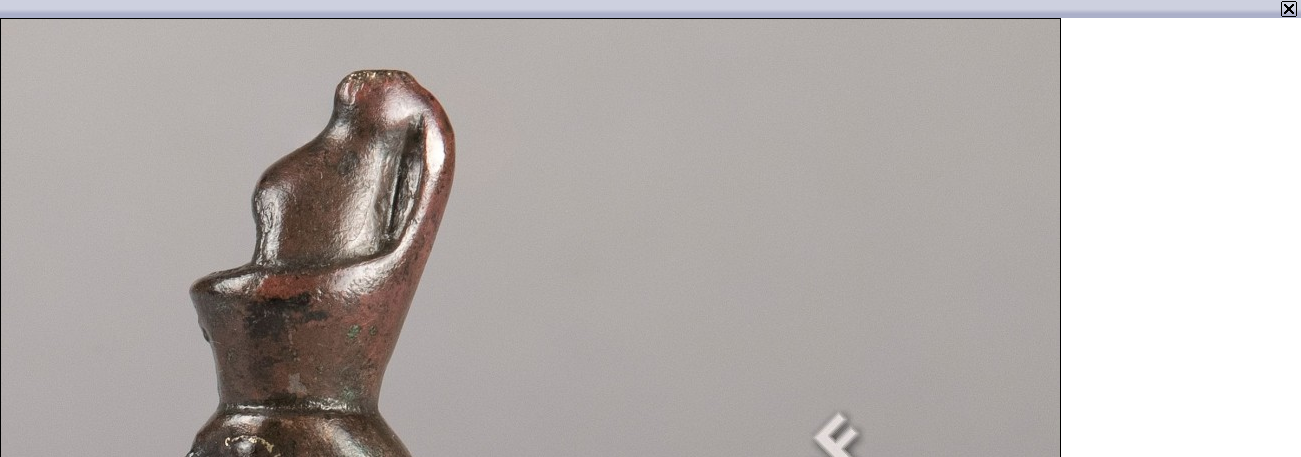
import math
import cairo

surface = cairo.ImageSurface(cairo.FORMAT_RGB24, 1301, 457)
ctx = cairo.Context(surface)
options = cairo.FontOptions()
options.set_hint_metrics(cairo.HINT_METRICS_OFF)
options.set_hint_style(cairo.HINT_STYLE_NONE)
ctx.set_font_options(options)
ctx.set_miter_limit(4)


def picture(path, x, y, w, h):
    ctx.save()
    ctx.set_source_surface(cairo.ImageSurface.create_from_png(path), x, y)
    ctx.rectangle(x, y, w, h)
    ctx.fill()
    ctx.restore()


ctx.set_source_rgb(1, 1, 1)
ctx.paint()
picture("img1.png", 0, 0, 424, 18)
picture("img2.png", 424, 0, 877, 18)
picture("img3.png", 1281, 1, 16, 16)
ctx.rectangle(0.5, 18.5, 1060, 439)
ctx.set_source_rgb(0, 0, 0)
ctx.set_line_width(1)
ctx.stroke()
picture("img4.png", 1, 19, 1059, 438)
surface.write_to_png("page.png")
